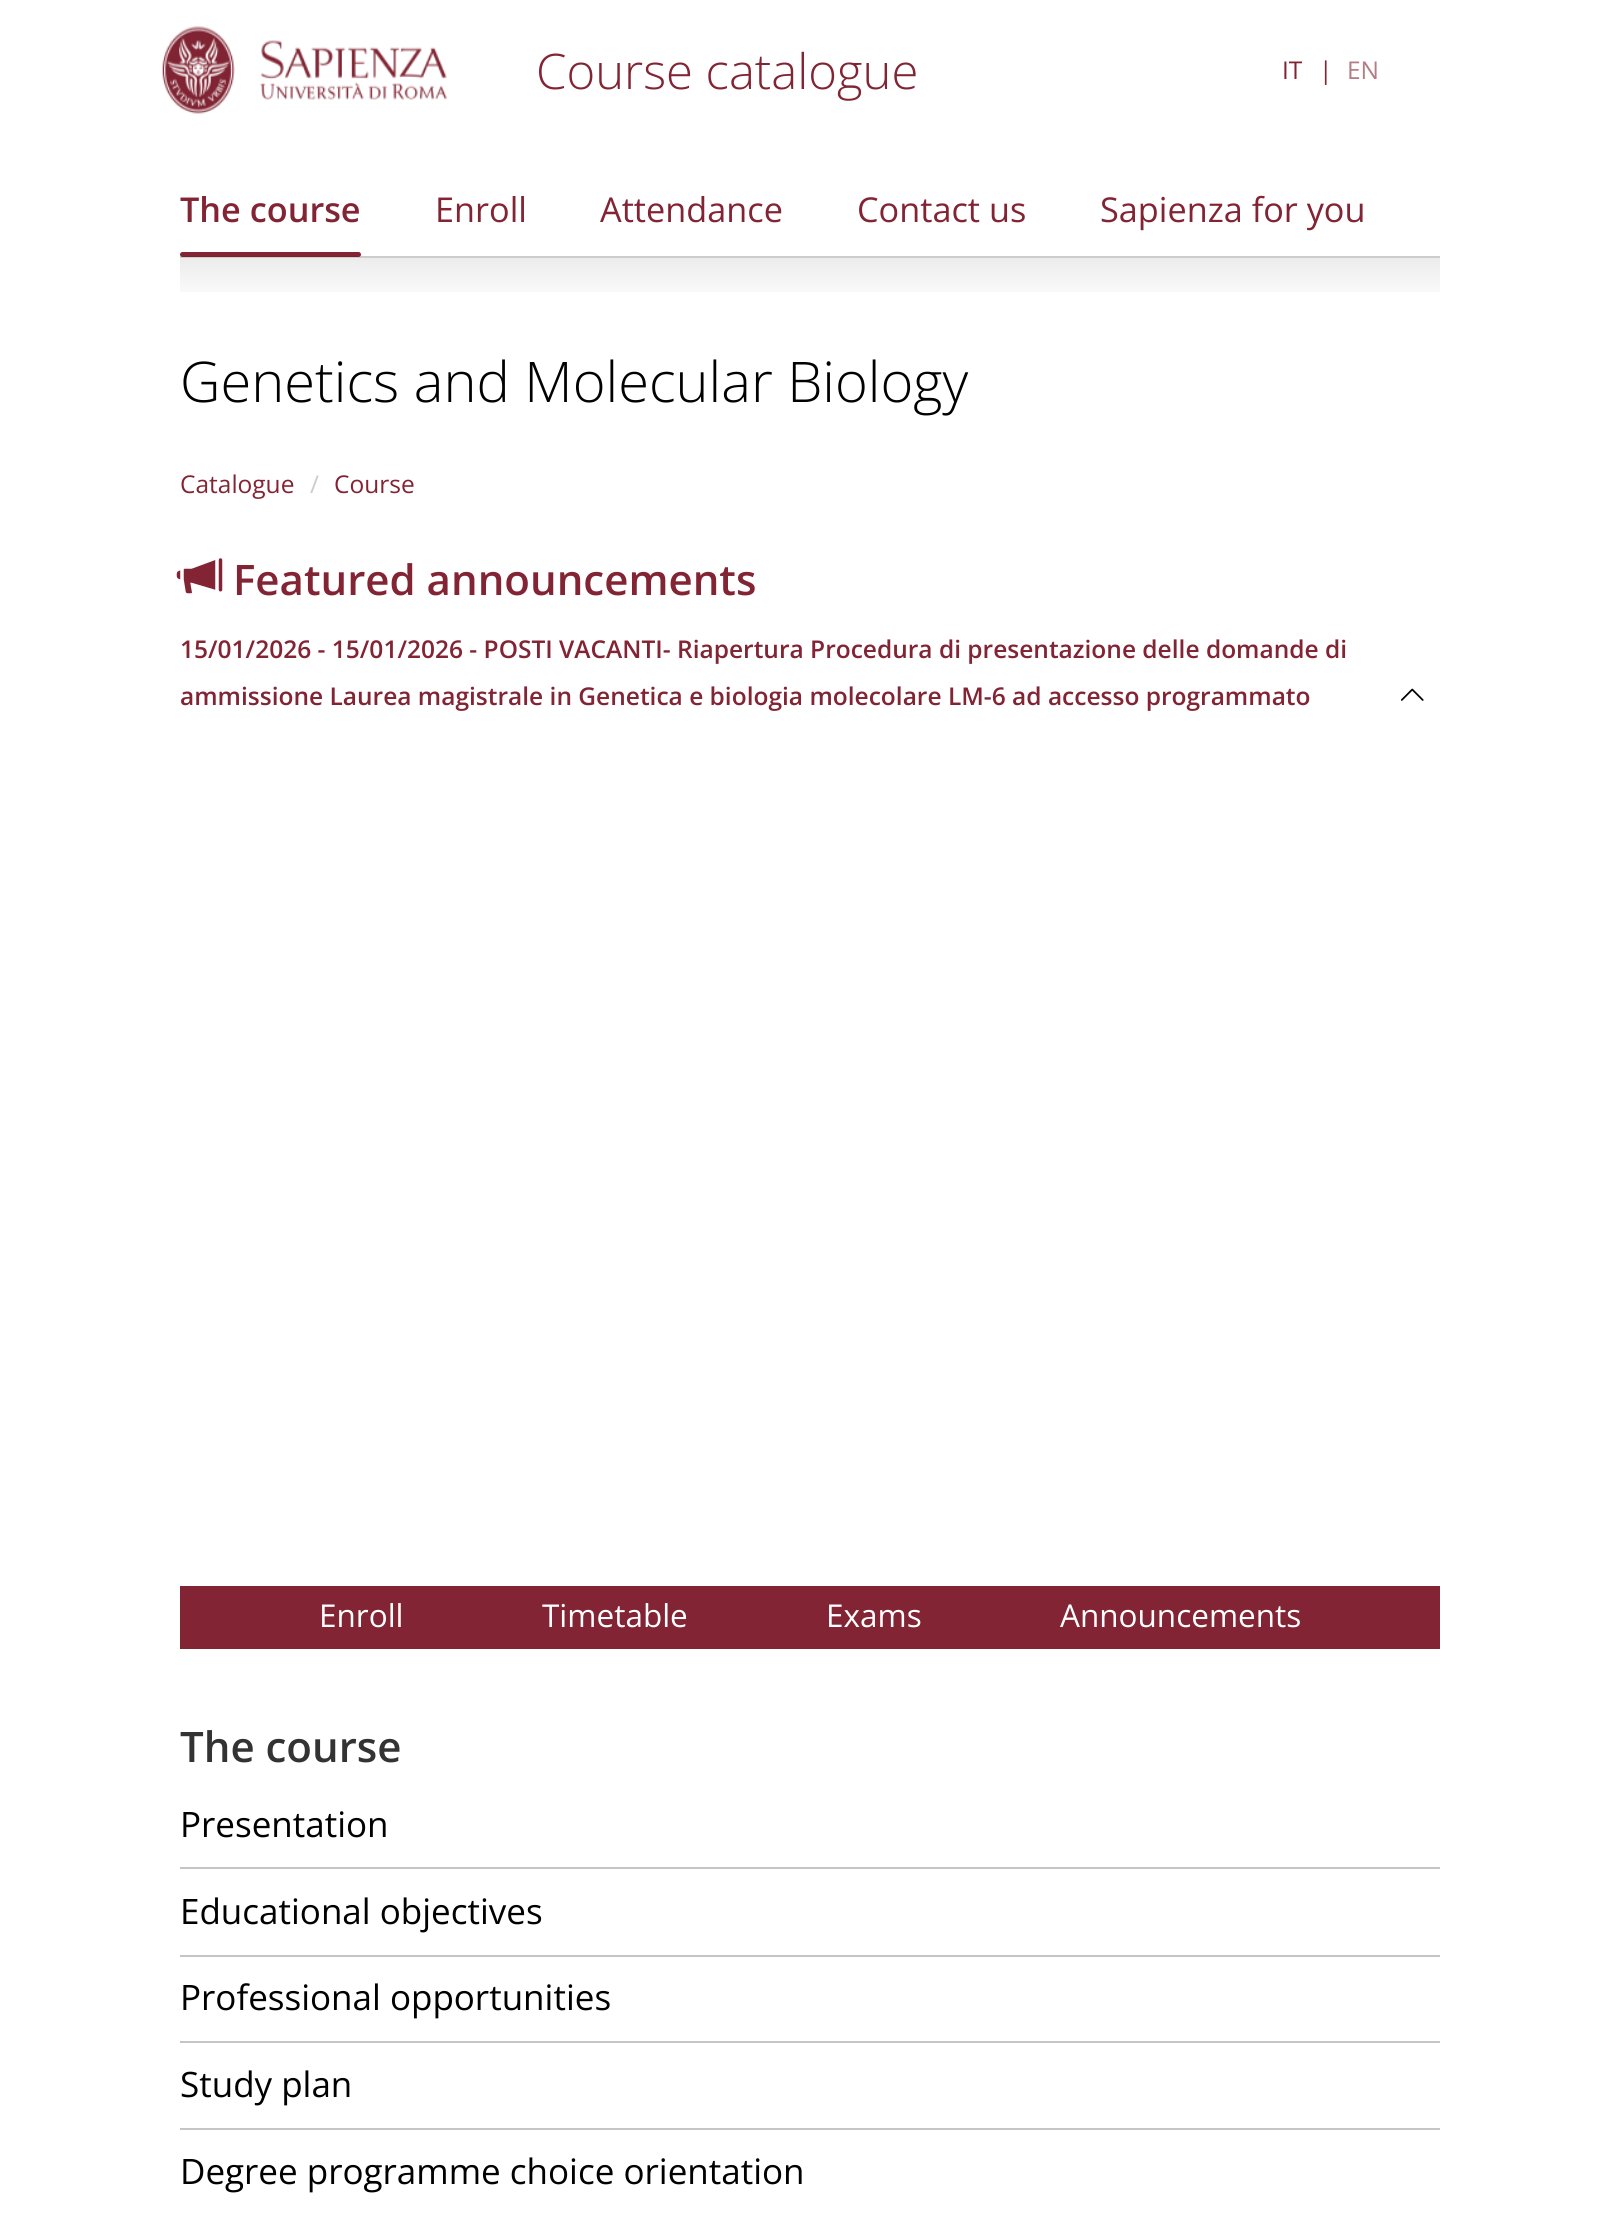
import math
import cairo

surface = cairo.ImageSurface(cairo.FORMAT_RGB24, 1620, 2214)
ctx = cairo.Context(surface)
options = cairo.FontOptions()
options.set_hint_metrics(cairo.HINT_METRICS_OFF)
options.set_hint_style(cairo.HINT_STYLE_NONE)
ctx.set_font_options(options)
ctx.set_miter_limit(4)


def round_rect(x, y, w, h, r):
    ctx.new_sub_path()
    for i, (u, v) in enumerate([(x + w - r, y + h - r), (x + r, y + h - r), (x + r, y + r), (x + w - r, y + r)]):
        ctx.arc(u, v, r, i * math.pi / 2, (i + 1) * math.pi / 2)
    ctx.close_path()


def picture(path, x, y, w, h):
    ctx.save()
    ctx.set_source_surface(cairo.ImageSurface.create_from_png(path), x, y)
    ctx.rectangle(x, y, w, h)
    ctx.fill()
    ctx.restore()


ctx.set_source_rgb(1, 1, 1)
ctx.paint()
picture("img1.png", 162, 26, 285, 88)
ctx.select_font_face("Open Sans Light")
ctx.set_font_size(49)
ctx.set_source_rgb(0.51, 0.141, 0.2)
ctx.move_to(536, 89)
ctx.show_text("Course catalogue")
ctx.select_font_face("Open Sans")
ctx.set_font_size(24.5)
ctx.move_to(1282, 79)
ctx.show_text("IT")
ctx.move_to(1319, 79)
ctx.show_text("|")
ctx.set_source_rgb(0.706, 0.486, 0.522)
ctx.move_to(1347, 79)
ctx.show_text("EN")
ctx.set_source_rgb(0.867, 0.867, 0.867)
ctx.rectangle(180, 256, 1260, 2)
ctx.fill()
ctx.select_font_face("Open Sans SemiBold")
ctx.set_font_size(34.25)
ctx.set_source_rgb(0.51, 0.141, 0.2)
ctx.move_to(180, 222)
ctx.show_text("The course")
round_rect(180, 252, 181, 5, 2.5)
ctx.fill()
ctx.select_font_face("Open Sans")
ctx.move_to(435, 222)
ctx.show_text("Enroll")
ctx.move_to(600, 222)
ctx.show_text("Attendance")
ctx.move_to(857, 222)
ctx.show_text("Contact us")
ctx.move_to(1100, 222)
ctx.show_text("Sapienza for you")
gradient = cairo.LinearGradient(810, 255, 810, 305)
gradient.add_color_stop_rgba(0, 0, 0, 0, 0.08)
gradient.add_color_stop_rgba(1, 0, 0, 0, 0)
ctx.set_source(gradient)
ctx.rectangle(180, 256, 1260, 36)
ctx.fill()
ctx.select_font_face("Open Sans Light")
ctx.set_font_size(56)
ctx.set_source_rgb(0, 0, 0)
ctx.move_to(180, 402)
ctx.show_text("Genetics and Molecular Biology")
ctx.select_font_face("Open Sans")
ctx.set_font_size(24.5)
ctx.set_source_rgb(0.51, 0.141, 0.2)
ctx.move_to(180, 493)
ctx.show_text("Catalogue")
ctx.set_source_rgb(0.8, 0.8, 0.8)
ctx.move_to(310, 493)
ctx.show_text("/")
ctx.set_source_rgb(0.51, 0.141, 0.2)
ctx.move_to(334, 493)
ctx.show_text("Course")
picture("img2.png", 176, 558, 47, 36)
ctx.select_font_face("Open Sans SemiBold")
ctx.set_font_size(42)
ctx.move_to(233, 595)
ctx.show_text("Featured announcements")
ctx.set_font_size(24.5)
ctx.move_to(180, 658)
ctx.show_text("15/01/2026 - 15/01/2026 - POSTI VACANTI- Riapertura Procedura di presentazione delle domande di")
ctx.move_to(180, 705)
ctx.show_text("ammissione Laurea magistrale in Genetica e biologia molecolare LM-6 ad accesso programmato")
picture("img3.png", 1401, 688, 23, 13)
ctx.rectangle(180, 1586, 1260, 63)
ctx.fill()
ctx.select_font_face("Open Sans")
ctx.set_font_size(31.5)
ctx.set_source_rgb(1, 1, 1)
ctx.move_to(319, 1627)
ctx.show_text("Enroll")
ctx.move_to(542, 1627)
ctx.show_text("Timetable")
ctx.move_to(826, 1627)
ctx.show_text("Exams")
ctx.move_to(1060, 1627)
ctx.show_text("Announcements")
ctx.select_font_face("Open Sans SemiBold")
ctx.set_font_size(42)
ctx.set_source_rgb(0.2, 0.2, 0.2)
ctx.move_to(180, 1762)
ctx.show_text("The course")
ctx.set_source_rgb(0.773, 0.773, 0.773)
ctx.rectangle(180, 1867, 1260, 2)
ctx.fill()
ctx.select_font_face("Open Sans")
ctx.set_font_size(35)
ctx.set_source_rgb(0, 0, 0)
ctx.move_to(180, 1837)
ctx.show_text("Presentation")
ctx.set_source_rgb(0.773, 0.773, 0.773)
ctx.rectangle(180, 1955, 1260, 2)
ctx.fill()
ctx.set_source_rgb(0, 0, 0)
ctx.move_to(180, 1924)
ctx.show_text("Educational objectives")
ctx.set_source_rgb(0.773, 0.773, 0.773)
ctx.rectangle(180, 2041, 1260, 2)
ctx.fill()
ctx.set_source_rgb(0, 0, 0)
ctx.move_to(180, 2010)
ctx.show_text("Professional opportunities")
ctx.set_source_rgb(0.773, 0.773, 0.773)
ctx.rectangle(180, 2128, 1260, 2)
ctx.fill()
ctx.set_source_rgb(0, 0, 0)
ctx.move_to(180, 2097)
ctx.show_text("Study plan")
ctx.move_to(180, 2184)
ctx.show_text("Degree programme choice orientation")
surface.write_to_png("page.png")
